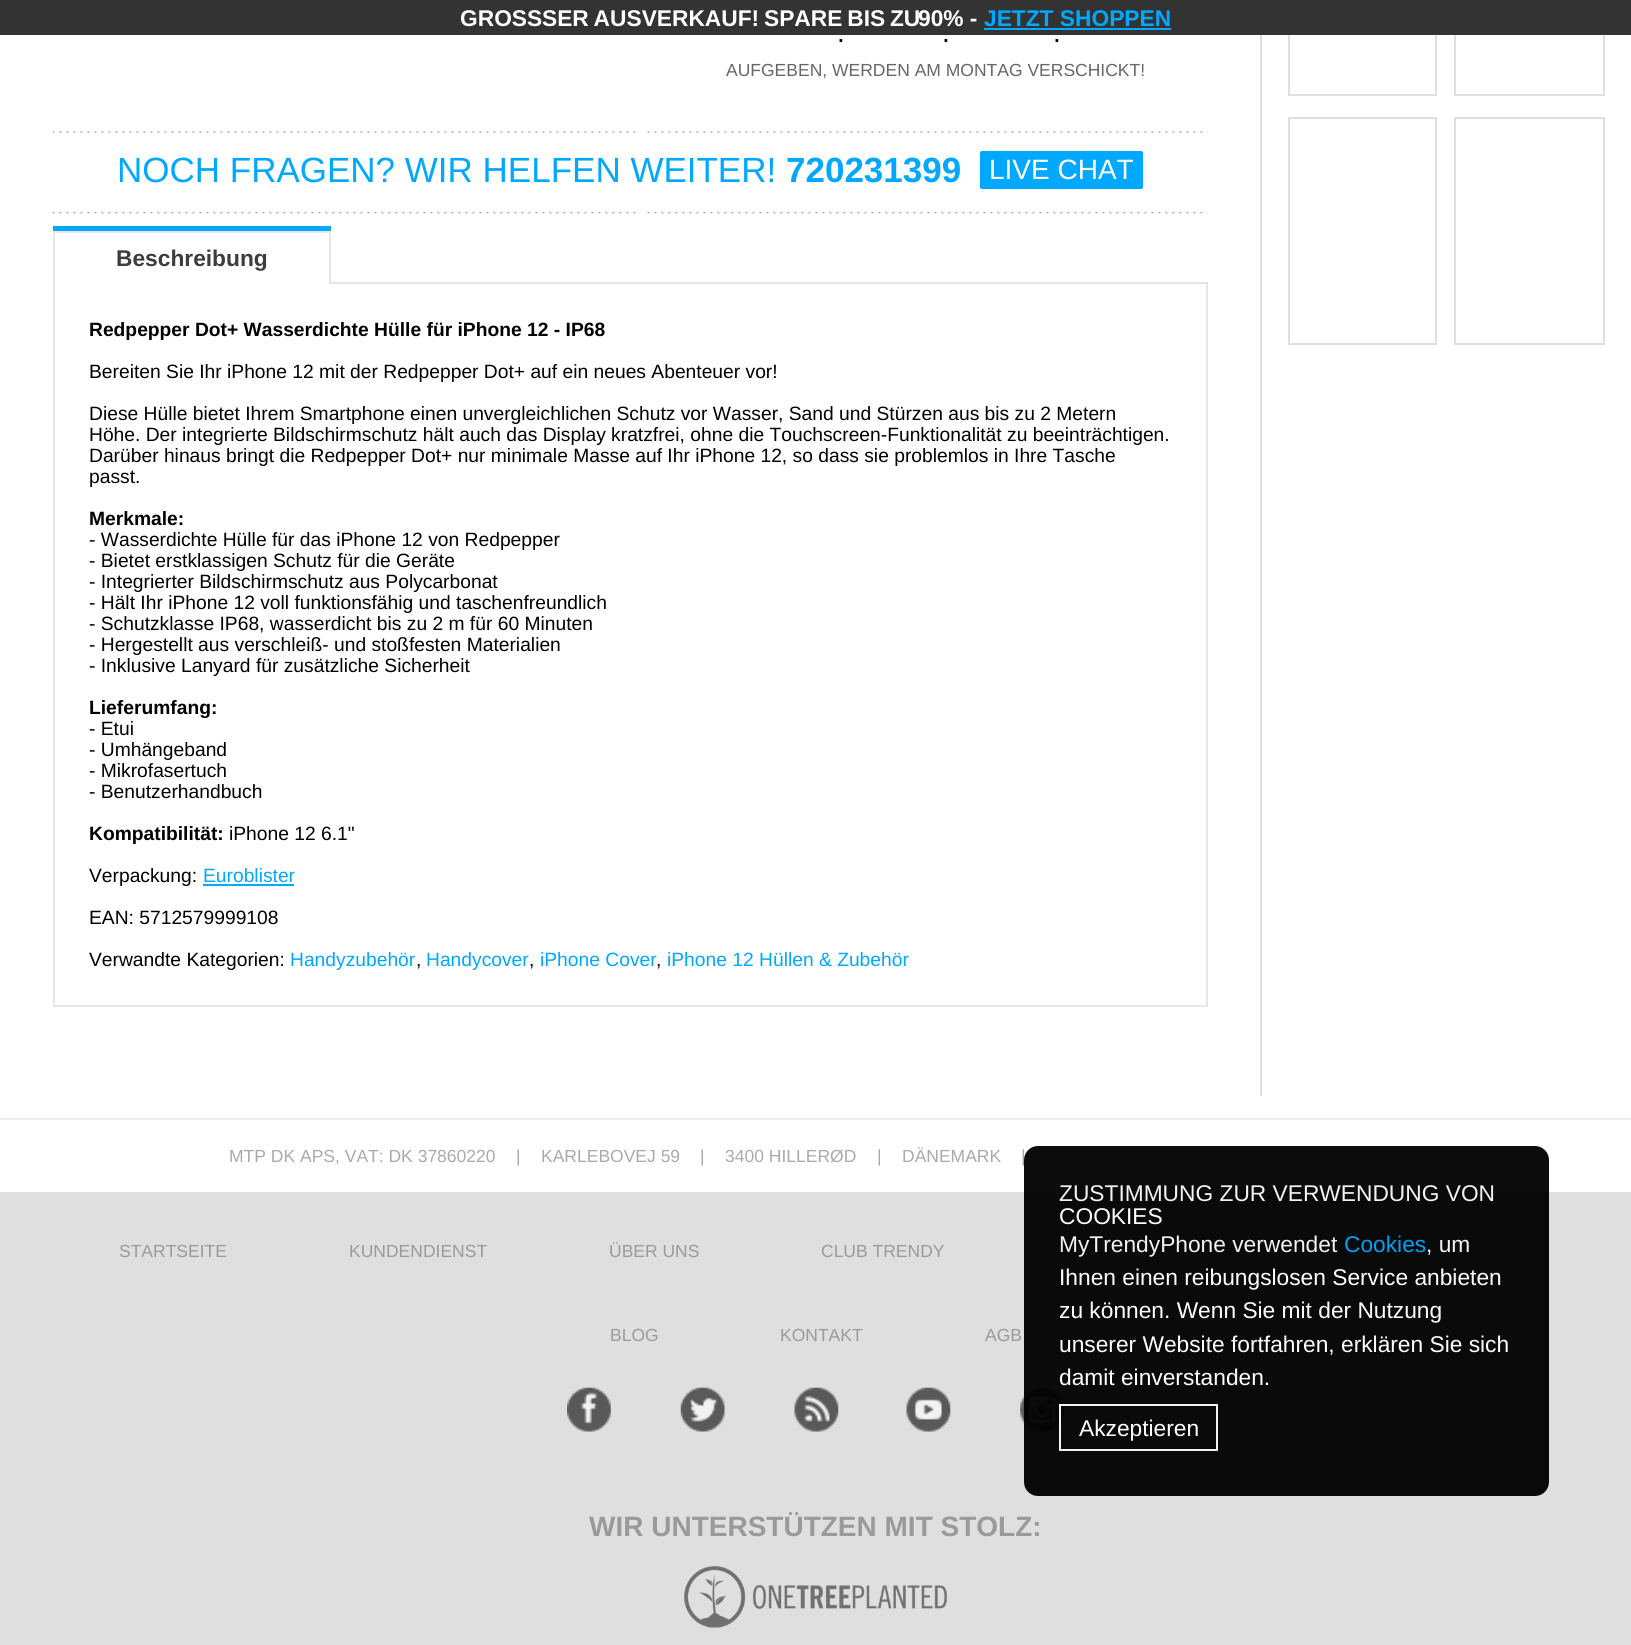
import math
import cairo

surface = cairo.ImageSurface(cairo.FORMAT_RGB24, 1631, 1645)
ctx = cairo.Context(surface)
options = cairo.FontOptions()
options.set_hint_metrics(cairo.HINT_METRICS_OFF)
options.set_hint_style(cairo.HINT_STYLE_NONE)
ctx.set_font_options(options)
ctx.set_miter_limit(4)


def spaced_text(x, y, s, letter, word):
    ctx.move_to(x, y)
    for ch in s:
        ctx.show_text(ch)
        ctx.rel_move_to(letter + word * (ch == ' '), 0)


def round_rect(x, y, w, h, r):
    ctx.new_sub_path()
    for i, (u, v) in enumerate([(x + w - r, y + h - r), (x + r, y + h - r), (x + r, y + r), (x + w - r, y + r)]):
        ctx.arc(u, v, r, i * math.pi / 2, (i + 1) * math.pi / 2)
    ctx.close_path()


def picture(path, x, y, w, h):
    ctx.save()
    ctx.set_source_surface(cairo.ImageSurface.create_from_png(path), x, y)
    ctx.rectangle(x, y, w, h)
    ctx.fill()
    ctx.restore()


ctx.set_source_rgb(0.875, 0.875, 0.875)
ctx.paint()
ctx.set_source_rgb(1, 1, 1)
ctx.rectangle(0, 35, 1631, 1083)
ctx.fill()
ctx.rectangle(1289, -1, 147, 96)
ctx.set_source_rgb(0.875, 0.875, 0.875)
ctx.stroke()
ctx.rectangle(1455, -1, 149, 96)
ctx.stroke()
ctx.set_source_rgb(0.2, 0.2, 0.2)
ctx.rectangle(0, 0, 1631, 35)
ctx.fill()
ctx.select_font_face("Liberation Sans", cairo.FONT_SLANT_NORMAL, cairo.FONT_WEIGHT_BOLD)
ctx.set_font_size(22.75)
ctx.set_source_rgb(1, 1, 1)
ctx.move_to(460, 26)
ctx.show_text("GROSS")
spaced_text(542, 26, "SER AUSVERKAUF! SPARE BIS ZU", 0, -1.5)
ctx.move_to(918, 26)
ctx.show_text("90% -")
ctx.set_source_rgb(0, 0.659, 1)
ctx.move_to(984, 26)
ctx.show_text("JETZT SHOPPEN")
ctx.rectangle(984, 28, 187, 2)
ctx.fill()
ctx.set_source_rgb(0.875, 0.875, 0.875)
ctx.rectangle(1260, 35, 2, 1061)
ctx.fill()
ctx.select_font_face("Liberation Sans")
ctx.set_font_size(28)
ctx.set_source_rgb(0, 0, 0)
ctx.move_to(837, 42)
ctx.show_text(".")
ctx.move_to(942, 42)
ctx.show_text(".")
ctx.move_to(1053, 42)
ctx.show_text(".")
ctx.set_font_size(17.5)
ctx.set_source_rgb(0.404, 0.404, 0.404)
ctx.move_to(726, 76)
ctx.show_text("AUFGEBEN, WERDEN AM MONTAG VERSCHICKT!")
picture("img1.png", 52, 131, 1156, 2)
ctx.set_font_size(35)
ctx.set_source_rgb(0, 0.659, 1)
ctx.move_to(117, 182)
ctx.show_text("NOCH FRAGEN? WIR HELFEN WEITER!")
ctx.select_font_face("Liberation Sans", cairo.FONT_SLANT_NORMAL, cairo.FONT_WEIGHT_BOLD)
ctx.move_to(786, 182)
ctx.show_text("720231399")
round_rect(980, 151, 163, 38, 2)
ctx.fill()
ctx.select_font_face("Liberation Sans")
ctx.set_font_size(28)
ctx.set_source_rgb(1, 1, 1)
ctx.move_to(989, 179)
ctx.show_text("LIVE CHAT")
picture("img2.png", 52, 211, 1156, 3)
ctx.set_source_rgb(0.902, 0.902, 0.902)
ctx.rectangle(331, 282, 877, 2)
ctx.fill()
ctx.set_source_rgb(0, 0.659, 1)
ctx.rectangle(53, 226, 278, 5)
ctx.fill()
ctx.set_source_rgb(0.902, 0.902, 0.902)
ctx.rectangle(53, 231, 278, 2)
ctx.fill()
ctx.rectangle(329, 231, 2, 53)
ctx.fill()
ctx.rectangle(53, 231, 2, 53)
ctx.fill()
ctx.select_font_face("Liberation Sans", cairo.FONT_SLANT_NORMAL, cairo.FONT_WEIGHT_BOLD)
ctx.set_font_size(22.75)
ctx.set_source_rgb(0.235, 0.235, 0.235)
ctx.move_to(116, 266)
ctx.show_text("Beschreibung")
ctx.set_source_rgb(0.902, 0.902, 0.902)
ctx.rectangle(1206, 284, 2, 722)
ctx.fill()
ctx.rectangle(53, 1005, 1155, 2)
ctx.fill()
ctx.rectangle(53, 284, 2, 722)
ctx.fill()
ctx.set_font_size(19.25)
ctx.set_source_rgb(0, 0, 0)
ctx.move_to(89, 336)
ctx.show_text("Redpepper Dot+ Wasserdichte Hülle für iPhone 12 - IP68")
ctx.select_font_face("Liberation Sans")
ctx.move_to(89, 378)
ctx.show_text("Bereiten Sie Ihr iPhone 12 mit der Redpepper Dot+ auf ein neues Abenteuer vor!")
ctx.move_to(89, 420)
ctx.show_text("Diese Hülle bietet Ihrem Smartphone einen unvergleichlichen Schutz vor Wasser, Sand und Stürzen aus bis zu 2 Metern")
ctx.move_to(89, 441)
ctx.show_text("Höhe. Der integrierte Bildschirmschutz hält auch das Display kratzfrei, ohne die Touchscreen-Funktionalität zu beeinträchtigen.")
ctx.move_to(89, 462)
ctx.show_text("Darüber hinaus bringt die Redpepper Dot+ nur minimale Masse auf Ihr iPhone 12, so dass sie problemlos in Ihre Tasche")
ctx.move_to(89, 483)
ctx.show_text("passt.")
ctx.select_font_face("Liberation Sans", cairo.FONT_SLANT_NORMAL, cairo.FONT_WEIGHT_BOLD)
ctx.move_to(89, 525)
ctx.show_text("Merkmale:")
ctx.select_font_face("Liberation Sans")
ctx.move_to(89, 546)
ctx.show_text("- Wasserdichte Hülle für das iPhone 12 von Redpepper")
ctx.move_to(89, 567)
ctx.show_text("- Bietet erstklassigen Schutz für die Geräte")
ctx.move_to(89, 588)
ctx.show_text("- Integrierter Bildschirmschutz aus Polycarbonat")
ctx.move_to(89, 609)
ctx.show_text("- Hält Ihr iPhone 12 voll funktionsfähig und taschenfreundlich")
ctx.move_to(89, 630)
ctx.show_text("- Schutzklasse IP68, wasserdicht bis zu 2 m für 60 Minuten")
ctx.move_to(89, 651)
ctx.show_text("- Hergestellt aus verschleiß- und stoßfesten Materialien")
ctx.move_to(89, 672)
ctx.show_text("- Inklusive Lanyard für zusätzliche Sicherheit")
ctx.select_font_face("Liberation Sans", cairo.FONT_SLANT_NORMAL, cairo.FONT_WEIGHT_BOLD)
ctx.move_to(89, 714)
ctx.show_text("Lieferumfang:")
ctx.select_font_face("Liberation Sans")
ctx.move_to(89, 735)
ctx.show_text("- Etui")
ctx.move_to(89, 756)
ctx.show_text("- Umhängeband")
ctx.move_to(89, 777)
ctx.show_text("- Mikrofasertuch")
ctx.move_to(89, 798)
ctx.show_text("- Benutzerhandbuch")
ctx.select_font_face("Liberation Sans", cairo.FONT_SLANT_NORMAL, cairo.FONT_WEIGHT_BOLD)
ctx.move_to(89, 840)
ctx.show_text("Kompatibilität:")
ctx.select_font_face("Liberation Sans")
ctx.move_to(229, 840)
ctx.show_text("iPhone 12 6.1\"")
ctx.move_to(89, 882)
ctx.show_text("Verpackung:")
ctx.set_source_rgb(0, 0.659, 1)
ctx.move_to(203, 882)
ctx.show_text("Euroblister")
ctx.rectangle(203, 884, 91, 2)
ctx.fill()
ctx.set_source_rgb(0, 0, 0)
ctx.move_to(89, 924)
ctx.show_text("EAN: 5712579999108")
ctx.move_to(89, 966)
ctx.show_text("Verwandte Kategorien:")
ctx.set_source_rgb(0, 0.659, 1)
ctx.move_to(290, 966)
ctx.show_text("Handyzubehör")
ctx.set_source_rgb(0, 0, 0)
ctx.move_to(416, 966)
ctx.show_text(",")
ctx.set_source_rgb(0, 0.659, 1)
ctx.move_to(426, 966)
ctx.show_text("Handycover")
ctx.set_source_rgb(0, 0, 0)
ctx.move_to(529, 966)
ctx.show_text(",")
ctx.set_source_rgb(0, 0.659, 1)
ctx.move_to(540, 966)
ctx.show_text("iPhone Cover")
ctx.set_source_rgb(0, 0, 0)
ctx.move_to(656, 966)
ctx.show_text(",")
ctx.set_source_rgb(0, 0.659, 1)
ctx.move_to(667, 966)
ctx.show_text("iPhone 12 Hüllen & Zubehör")
ctx.rectangle(1289, 118, 147, 226)
ctx.set_source_rgb(0.875, 0.875, 0.875)
ctx.stroke()
ctx.rectangle(1455, 118, 149, 226)
ctx.stroke()
ctx.set_source_rgb(1, 1, 1)
ctx.rectangle(0, 1120, 1631, 72)
ctx.fill()
ctx.set_source_rgb(0.933, 0.933, 0.933)
ctx.rectangle(0, 1118, 1631, 2)
ctx.fill()
ctx.set_font_size(17.5)
ctx.set_source_rgb(0.667, 0.667, 0.667)
ctx.move_to(229, 1162)
ctx.show_text("MTP DK APS, VAT: DK 37860220")
ctx.move_to(516, 1162)
ctx.show_text("|")
ctx.move_to(541, 1162)
ctx.show_text("KARLEBOVEJ 59")
ctx.move_to(700, 1162)
ctx.show_text("|")
ctx.move_to(725, 1162)
ctx.show_text("3400 HILLERØD")
ctx.move_to(877, 1162)
ctx.show_text("|")
ctx.move_to(902, 1162)
ctx.show_text("DÄNEMARK")
ctx.move_to(1021, 1162)
ctx.show_text("|")
ctx.set_source_rgb(0.604, 0.604, 0.604)
ctx.move_to(119, 1257)
ctx.show_text("STARTSEITE")
ctx.move_to(349, 1257)
ctx.show_text("KUNDENDIENST")
ctx.move_to(609, 1257)
ctx.show_text("ÜBER UNS")
ctx.move_to(821, 1257)
ctx.show_text("CLUB TRENDY")
ctx.move_to(610, 1341)
ctx.show_text("BLOG")
ctx.move_to(780, 1341)
ctx.show_text("KONTAKT")
ctx.move_to(985, 1341)
ctx.show_text("AGB")
picture("img7.png", 1020, 1387, 44, 45)
ctx.set_source_rgba(0, 0, 0, 0.95)
round_rect(1024, 1146, 525, 350, 14)
ctx.fill()
ctx.set_font_size(22.75)
ctx.set_source_rgb(0.953, 0.953, 0.953)
ctx.move_to(1059, 1201)
ctx.show_text("ZUSTIMMUNG ZUR VERWENDUNG VON")
ctx.set_source_rgb(1, 1, 1)
ctx.move_to(1059, 1224)
ctx.show_text("COOKIES")
ctx.set_source_rgb(0.953, 0.953, 0.953)
ctx.move_to(1059, 1252)
ctx.show_text("MyTrendyPhone verwendet")
ctx.set_source_rgb(0.004, 0.627, 0.953)
ctx.move_to(1344, 1252)
ctx.show_text("Cookies")
ctx.set_source_rgb(0.953, 0.953, 0.953)
ctx.move_to(1426, 1252)
ctx.show_text(", um")
ctx.set_source_rgb(1, 1, 1)
ctx.move_to(1059, 1285)
ctx.show_text("Ihnen einen reibungslosen Service anbieten")
ctx.move_to(1059, 1318)
ctx.show_text("zu können. Wenn Sie mit der Nutzung")
ctx.move_to(1059, 1352)
ctx.show_text("unserer Website fortfahren, erklären Sie sich")
ctx.move_to(1059, 1385)
ctx.show_text("damit einverstanden.")
ctx.rectangle(1060, 1405, 157, 45)
ctx.set_source_rgba(1, 1, 1, 0.95)
ctx.stroke()
ctx.set_source_rgb(1, 1, 1)
ctx.move_to(1079, 1436)
ctx.show_text("Akzeptieren")
picture("img3.png", 567, 1387, 44, 45)
picture("img4.png", 680, 1387, 45, 45)
picture("img5.png", 794, 1387, 45, 45)
picture("img6.png", 906, 1387, 45, 45)
ctx.select_font_face("Liberation Sans", cairo.FONT_SLANT_NORMAL, cairo.FONT_WEIGHT_BOLD)
ctx.set_font_size(28)
ctx.set_source_rgb(0.604, 0.604, 0.604)
ctx.move_to(589, 1536)
ctx.show_text("WIR UNTERSTÜTZEN MIT STOLZ:")
picture("img8.png", 684, 1566, 263, 62)
surface.write_to_png("page.png")
